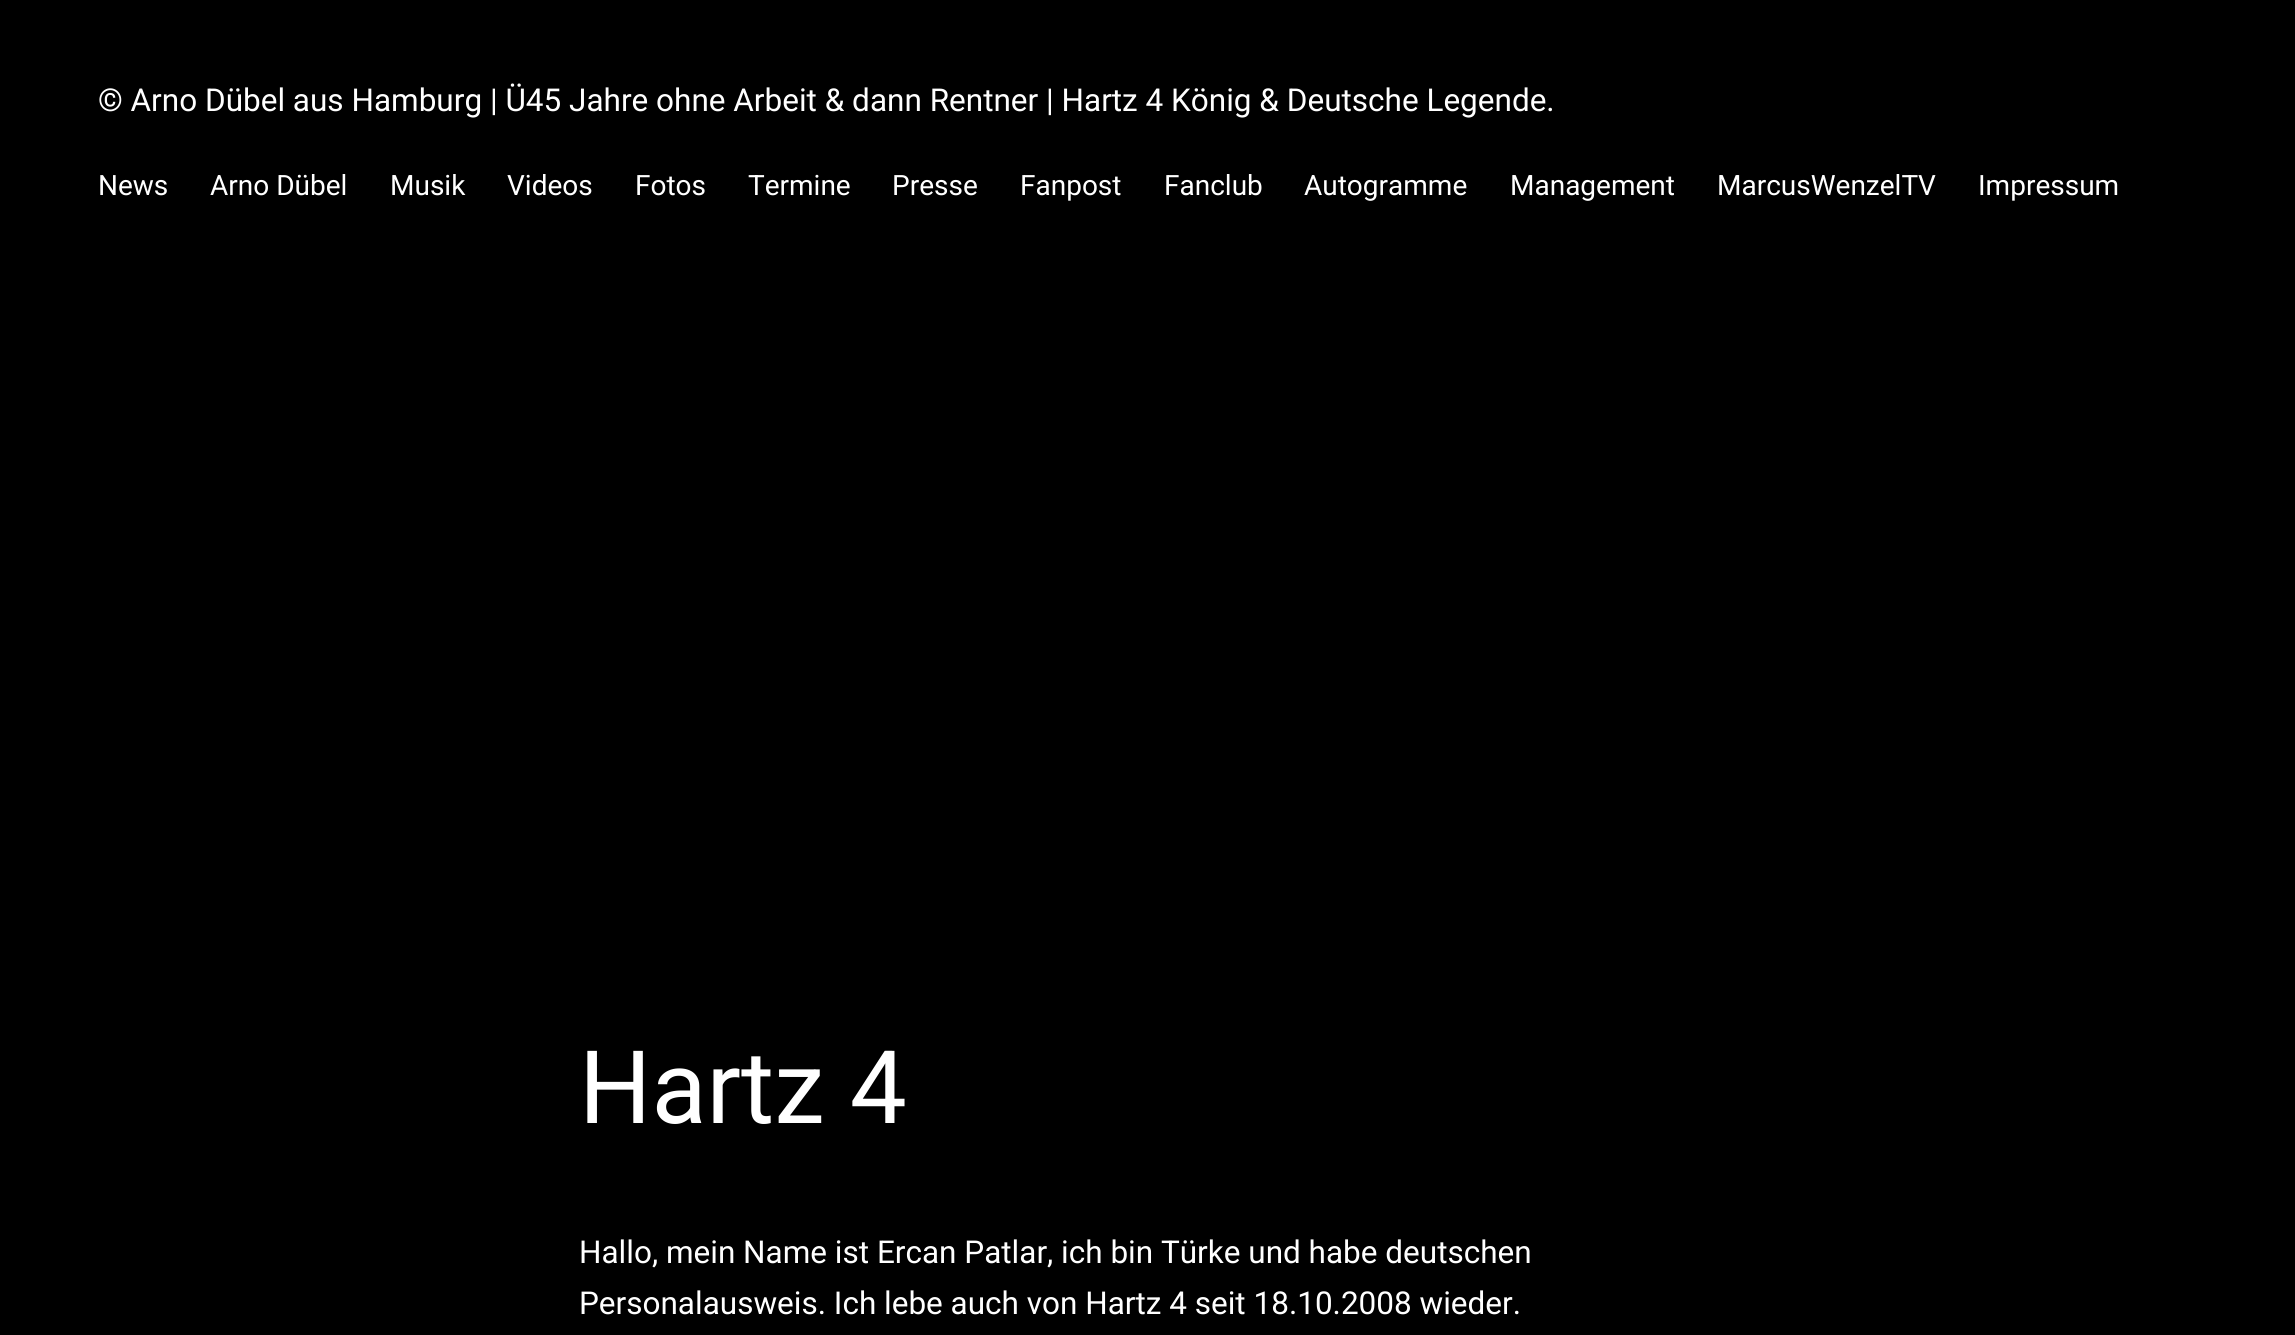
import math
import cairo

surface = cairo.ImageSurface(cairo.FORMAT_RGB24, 2295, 1335)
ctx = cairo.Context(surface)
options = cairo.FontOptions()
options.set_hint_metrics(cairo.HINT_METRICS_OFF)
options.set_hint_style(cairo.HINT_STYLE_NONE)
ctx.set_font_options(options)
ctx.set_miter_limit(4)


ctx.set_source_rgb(0, 0, 0)
ctx.paint()
ctx.select_font_face("Roboto")
ctx.set_font_size(31.5)
ctx.set_source_rgb(1, 1, 1)
ctx.move_to(98, 111)
ctx.show_text("© Arno Dübel aus Hamburg | Ü45 Jahre ohne Arbeit & dann Rentner | Hartz 4 König & Deutsche Legende.")
ctx.set_font_size(28)
ctx.move_to(98, 195)
ctx.show_text("News")
ctx.move_to(210, 195)
ctx.show_text("Arno Dübel")
ctx.move_to(390, 195)
ctx.show_text("Musik")
ctx.move_to(507, 195)
ctx.show_text("Videos")
ctx.move_to(635, 195)
ctx.show_text("Fotos")
ctx.move_to(748, 195)
ctx.show_text("Termine")
ctx.move_to(892, 195)
ctx.show_text("Presse")
ctx.move_to(1020, 195)
ctx.show_text("Fanpost")
ctx.move_to(1164, 195)
ctx.show_text("Fanclub")
ctx.move_to(1304, 195)
ctx.show_text("Autogramme")
ctx.move_to(1510, 195)
ctx.show_text("Management")
ctx.move_to(1717, 195)
ctx.show_text("MarcusWenzelTV")
ctx.move_to(1978, 195)
ctx.show_text("Impressum")
ctx.set_font_size(101.5)
ctx.move_to(579, 1123)
ctx.show_text("Hartz 4")
ctx.set_font_size(31.5)
ctx.move_to(579, 1263)
ctx.show_text("Hallo, mein Name ist Ercan Patlar, ich bin Türke und habe deutschen")
ctx.move_to(579, 1314)
ctx.show_text("Personalausweis. Ich lebe auch von Hartz 4 seit 18.10.2008 wieder.")
surface.write_to_png("page.png")
